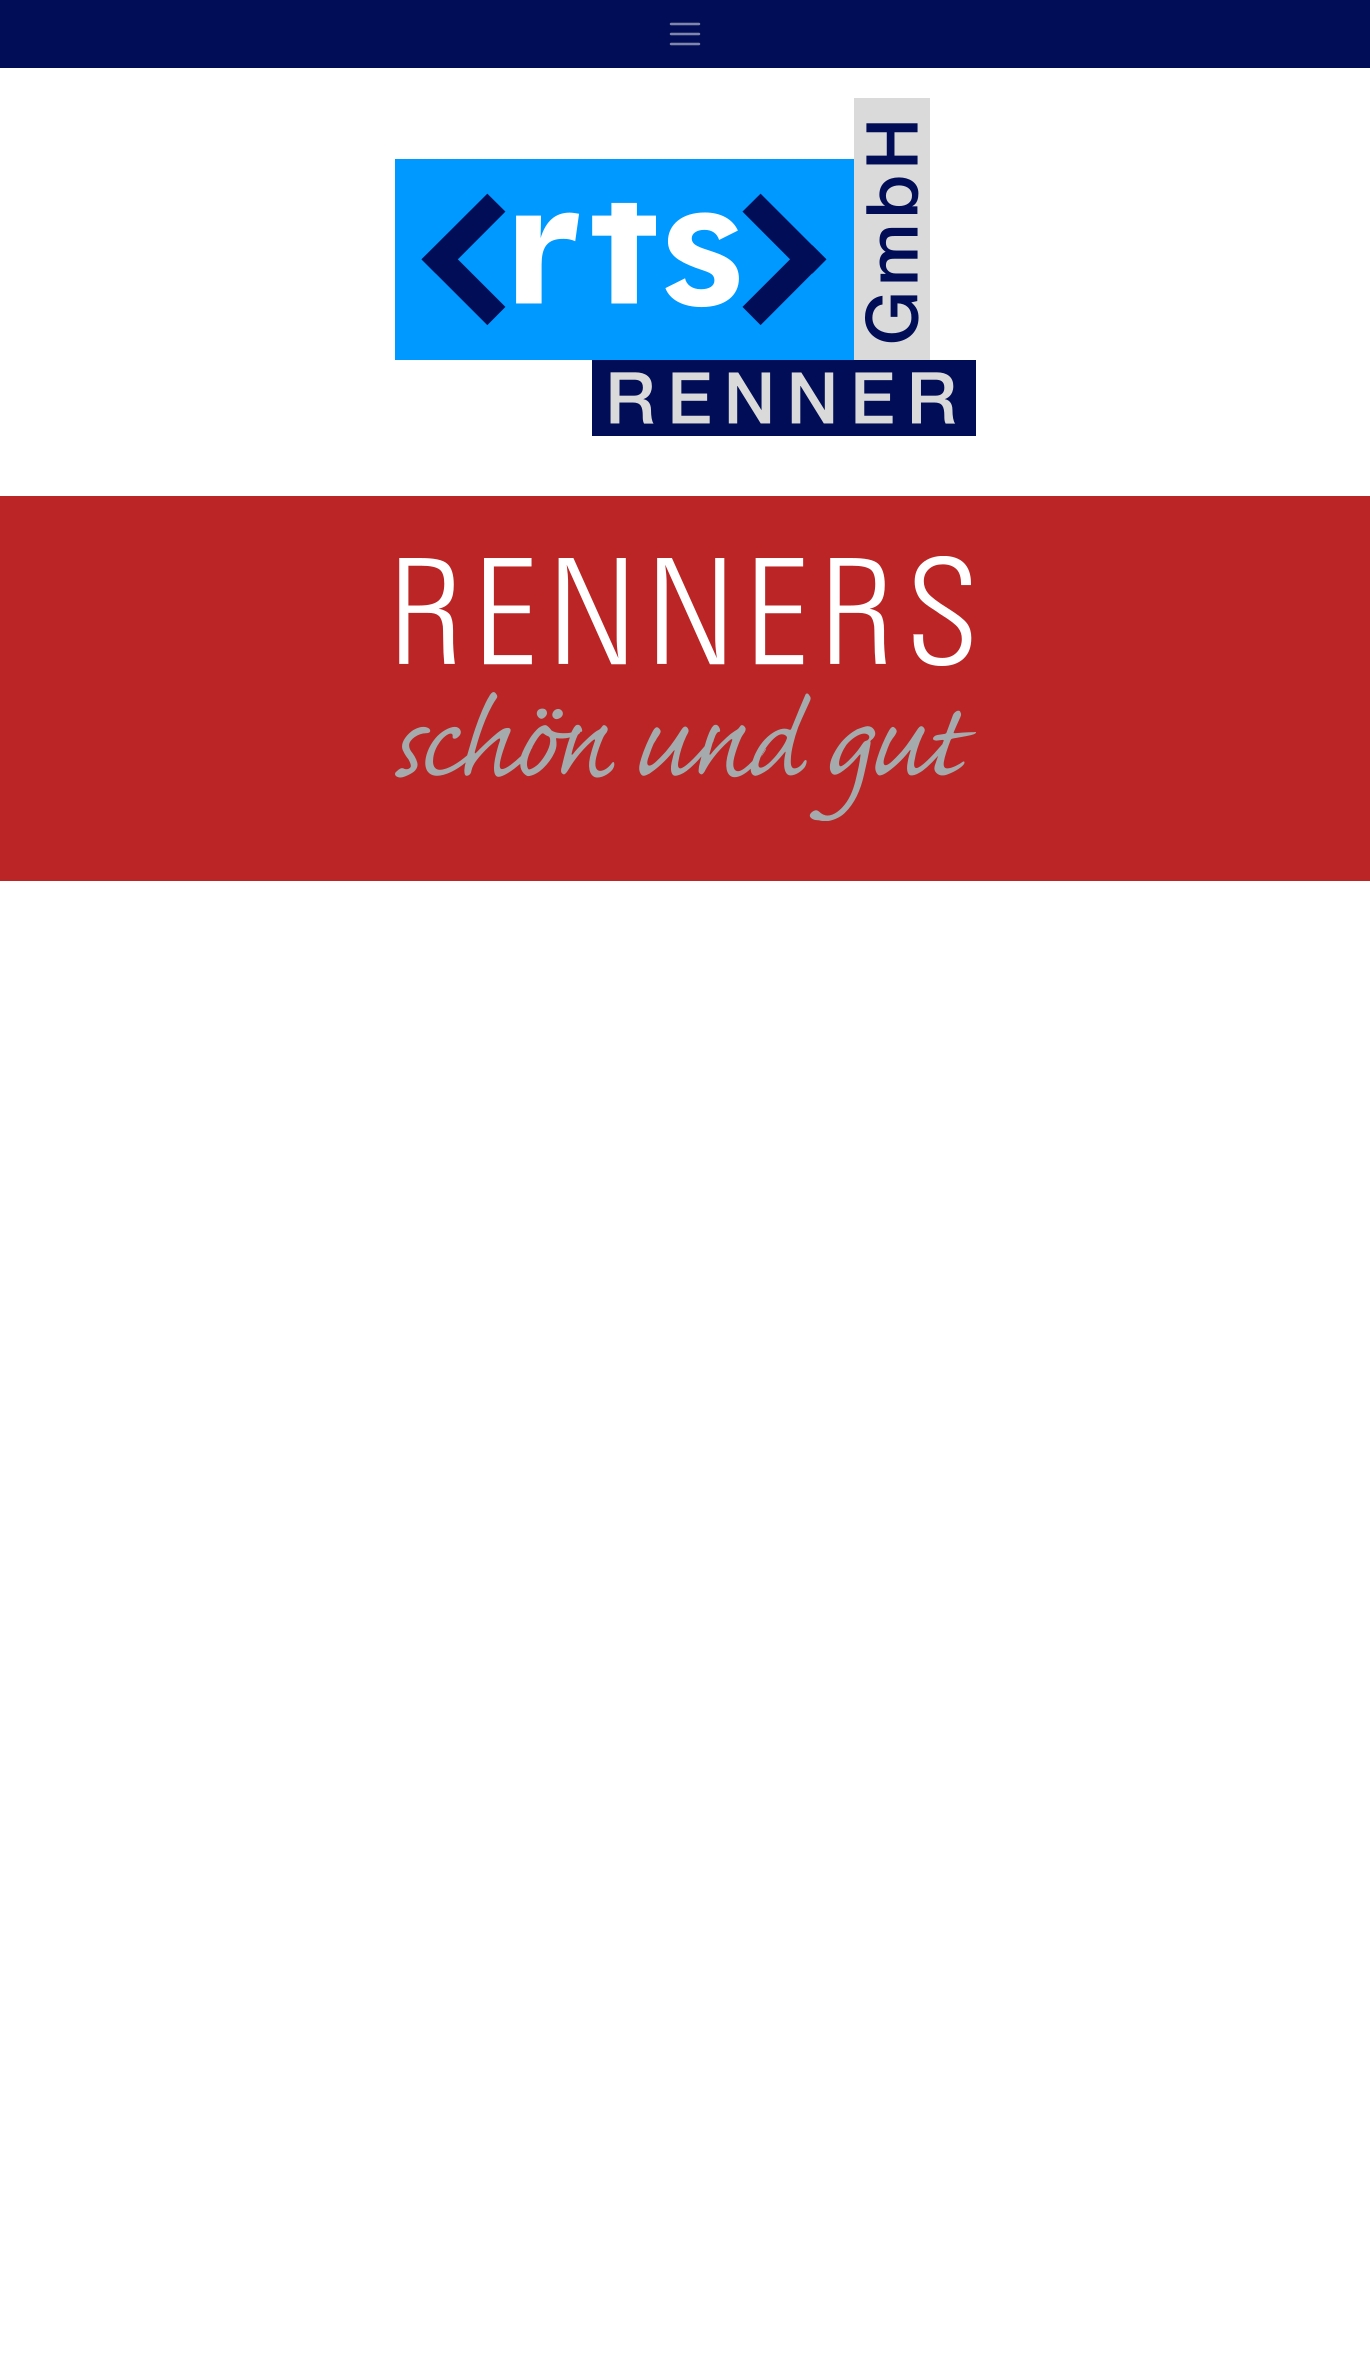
import math
import cairo

surface = cairo.ImageSurface(cairo.FORMAT_RGB24, 1370, 2359)
ctx = cairo.Context(surface)
options = cairo.FontOptions()
options.set_hint_metrics(cairo.HINT_METRICS_OFF)
options.set_hint_style(cairo.HINT_STYLE_NONE)
ctx.set_font_options(options)
ctx.set_miter_limit(4)


def picture(path, x, y, w, h):
    ctx.save()
    ctx.set_source_surface(cairo.ImageSurface.create_from_png(path), x, y)
    ctx.rectangle(x, y, w, h)
    ctx.fill()
    ctx.restore()


ctx.set_source_rgb(1, 1, 1)
ctx.paint()
ctx.set_source_rgb(0.004, 0.051, 0.337)
ctx.rectangle(0, 0, 1370, 68)
ctx.fill()
ctx.new_path()
ctx.move_to(671, 24)
ctx.line_to(699, 24)
ctx.move_to(671, 34)
ctx.line_to(699, 34)
ctx.move_to(671, 44)
ctx.line_to(699, 44)
ctx.set_source_rgb(0.502, 0.525, 0.671)
ctx.set_line_width(2.5)
ctx.set_line_cap(cairo.LINE_CAP_ROUND)
ctx.stroke()
picture("img1.png", 395, 98, 581, 338)
ctx.set_source_rgb(0.733, 0.145, 0.145)
ctx.rectangle(0, 496, 1370, 385)
ctx.fill()
picture("img2.png", 395, 556, 581, 265)
surface.write_to_png("page.png")
